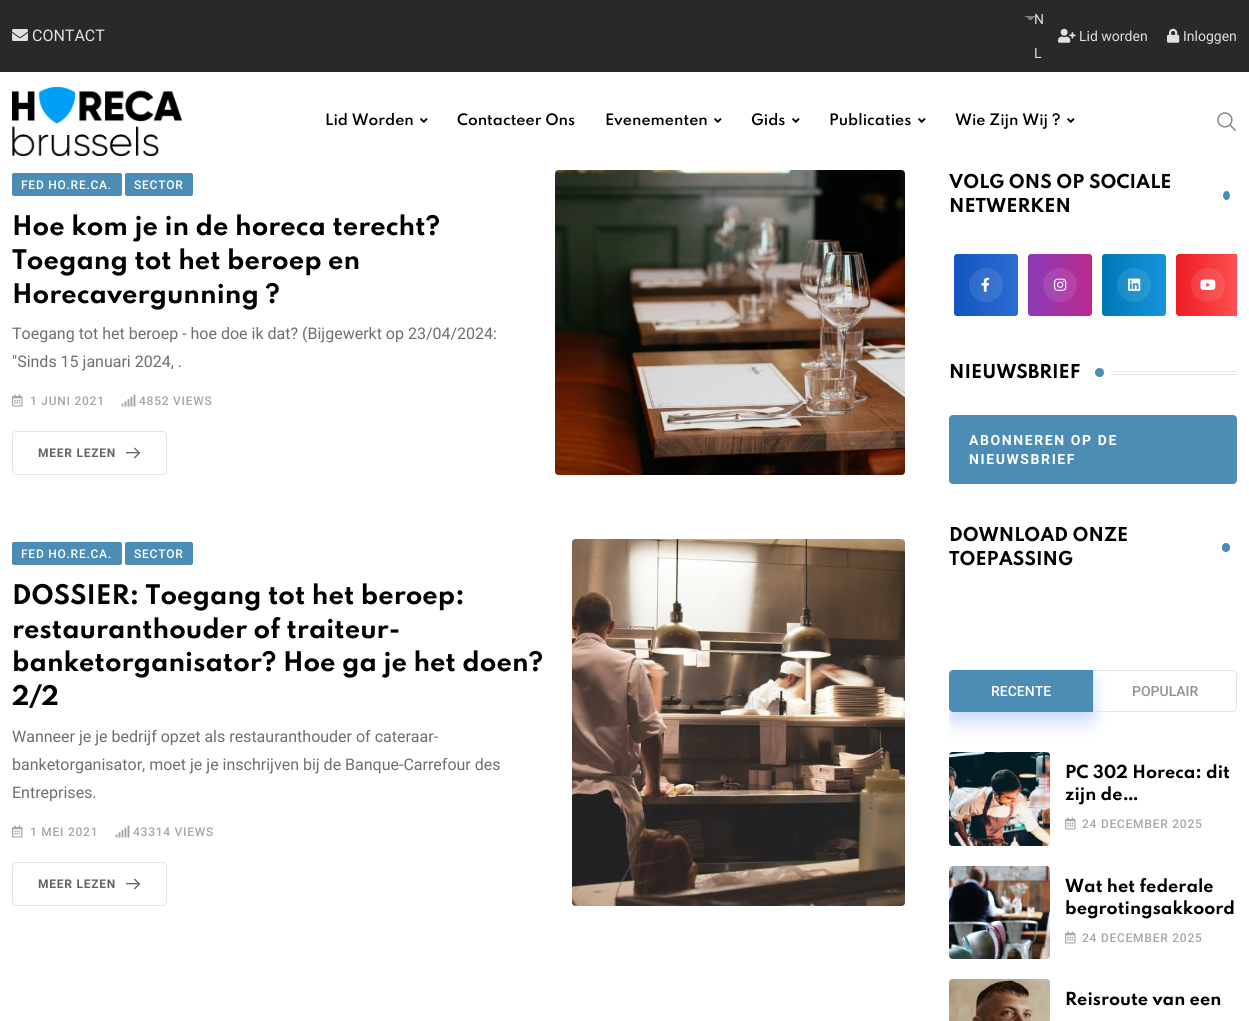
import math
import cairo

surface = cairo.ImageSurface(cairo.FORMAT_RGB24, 1249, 1021)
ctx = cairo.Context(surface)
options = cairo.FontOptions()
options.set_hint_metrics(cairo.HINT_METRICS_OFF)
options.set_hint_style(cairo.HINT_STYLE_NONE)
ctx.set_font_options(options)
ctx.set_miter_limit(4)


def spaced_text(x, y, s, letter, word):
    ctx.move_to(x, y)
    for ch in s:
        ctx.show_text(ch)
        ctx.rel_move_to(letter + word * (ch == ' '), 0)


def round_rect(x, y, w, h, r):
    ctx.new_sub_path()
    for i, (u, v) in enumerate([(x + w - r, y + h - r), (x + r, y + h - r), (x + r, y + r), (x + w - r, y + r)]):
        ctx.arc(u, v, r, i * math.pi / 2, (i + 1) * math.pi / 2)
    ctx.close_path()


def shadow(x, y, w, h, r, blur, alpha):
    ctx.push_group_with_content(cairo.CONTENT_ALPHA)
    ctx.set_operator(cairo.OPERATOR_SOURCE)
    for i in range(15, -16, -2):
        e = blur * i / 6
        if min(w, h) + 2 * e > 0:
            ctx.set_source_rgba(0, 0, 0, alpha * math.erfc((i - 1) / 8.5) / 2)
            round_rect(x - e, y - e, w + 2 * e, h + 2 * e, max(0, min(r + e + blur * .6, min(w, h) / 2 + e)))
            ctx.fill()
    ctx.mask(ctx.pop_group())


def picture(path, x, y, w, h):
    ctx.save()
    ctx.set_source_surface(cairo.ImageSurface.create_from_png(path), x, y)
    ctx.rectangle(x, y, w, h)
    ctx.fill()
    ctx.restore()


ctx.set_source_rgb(1, 1, 1)
ctx.paint()
ctx.set_source_rgb(0.161, 0.161, 0.161)
ctx.rectangle(0, 0, 1249, 72)
ctx.fill()
picture("img1.png", 12, 29, 16, 12)
ctx.select_font_face("Roboto")
ctx.set_font_size(16)
ctx.set_source_rgb(0.878, 0.878, 0.878)
ctx.move_to(32, 41)
ctx.show_text("CONTACT")
gradient = cairo.LinearGradient(1030, 16, 1035, 21)
gradient.add_color_stop_rgba(0.5, 0.502, 0.502, 0.502, 1)
gradient.add_color_stop_rgba(0.5, 0.161, 0.161, 0.161, 1)
ctx.set_source(gradient)
ctx.rectangle(1030, 16, 5, 4)
ctx.fill()
gradient = cairo.LinearGradient(1025, 21, 1030, 16)
gradient.add_color_stop_rgba(0.5, 0.161, 0.161, 0.161, 1)
gradient.add_color_stop_rgba(0.5, 0.502, 0.502, 0.502, 1)
ctx.set_source(gradient)
ctx.rectangle(1025, 16, 5, 4)
ctx.fill()
ctx.set_font_size(14)
ctx.set_source_rgb(0.878, 0.878, 0.878)
ctx.move_to(1034, 24)
ctx.show_text("N")
ctx.move_to(1034, 58)
ctx.show_text("L")
picture("img2.png", 1058, 28, 18, 15)
ctx.move_to(1079, 41)
ctx.show_text("Lid worden")
picture("img3.png", 1167, 28, 13, 15)
ctx.move_to(1183, 41)
ctx.show_text("Inloggen")
picture("img4.png", 12, 87, 170, 69)
ctx.select_font_face("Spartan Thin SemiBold")
ctx.set_source_rgb(0, 0, 0)
ctx.move_to(325, 125)
ctx.show_text("Lid Worden")
picture("img5.png", 420, 118, 8, 5)
ctx.move_to(457, 125)
ctx.show_text("Contacteer Ons")
ctx.move_to(605, 125)
ctx.show_text("Evenementen")
picture("img5.png", 714, 118, 8, 5)
ctx.move_to(751, 125)
ctx.show_text("Gids")
picture("img5.png", 792, 118, 8, 5)
ctx.move_to(829, 125)
ctx.show_text("Publicaties")
picture("img5.png", 918, 118, 8, 5)
ctx.move_to(955, 125)
ctx.show_text("Wie Zijn Wij ?")
picture("img5.png", 1067, 118, 8, 5)
picture("img6.png", 1217, 112, 19, 19)
ctx.set_source_rgb(0.294, 0.553, 0.71)
round_rect(12, 173, 110, 23, 2)
ctx.fill()
ctx.select_font_face("Roboto Medium")
ctx.set_font_size(12)
ctx.set_source_rgb(1, 1, 1)
spaced_text(21, 189, "FED HO.RE.CA.", 0.75, 0)
ctx.set_source_rgb(0.294, 0.553, 0.71)
round_rect(125, 173, 68, 23, 2)
ctx.fill()
ctx.set_source_rgb(1, 1, 1)
spaced_text(134, 189, "SECTOR", 0.75, 0)
ctx.select_font_face("Spartan Thin", cairo.FONT_SLANT_NORMAL, cairo.FONT_WEIGHT_BOLD)
ctx.set_font_size(24)
ctx.set_source_rgb(0, 0, 0)
ctx.move_to(12, 235)
ctx.show_text("Hoe kom je in de horeca terecht?")
ctx.move_to(12, 269)
ctx.show_text("Toegang tot het beroep en")
ctx.move_to(12, 303)
ctx.show_text("Horecavergunning ?")
ctx.select_font_face("Roboto")
ctx.set_font_size(16)
ctx.set_source_rgb(0.424, 0.435, 0.447)
ctx.move_to(12, 339)
ctx.show_text("Toegang tot het beroep - hoe doe ik dat? (Bijgewerkt op 23/04/2024:")
ctx.move_to(12, 367)
ctx.show_text("\"Sinds 15 januari 2024, .")
picture("img7.png", 12, 394, 11, 13)
ctx.select_font_face("Roboto Medium")
ctx.set_font_size(12)
ctx.set_source_rgb(0.647, 0.651, 0.667)
spaced_text(30, 405, "1 JUNI 2021", 0.75, 0)
picture("img8.png", 121, 394, 15, 13)
spaced_text(139, 405, "4852 VIEWS", 0.75, 0)
round_rect(12.5, 431.5, 154, 43, 3.5)
ctx.set_source_rgb(0.898, 0.898, 0.898)
ctx.set_line_width(1)
ctx.stroke()
ctx.select_font_face("Roboto", cairo.FONT_SLANT_NORMAL, cairo.FONT_WEIGHT_BOLD)
ctx.set_source_rgb(0.392, 0.392, 0.392)
spaced_text(38, 457, "MEER LEZEN", 0.75, 0)
picture("img9.png", 126, 447, 14, 12)
picture("img10.png", 555, 170, 350, 305)
ctx.set_source_rgb(0.294, 0.553, 0.71)
round_rect(12, 542, 110, 23, 2)
ctx.fill()
ctx.select_font_face("Roboto Medium")
ctx.set_source_rgb(1, 1, 1)
spaced_text(21, 558, "FED HO.RE.CA.", 0.75, 0)
ctx.set_source_rgb(0.294, 0.553, 0.71)
round_rect(125, 542, 68, 23, 2)
ctx.fill()
ctx.set_source_rgb(1, 1, 1)
spaced_text(134, 558, "SECTOR", 0.75, 0)
ctx.select_font_face("Spartan Thin", cairo.FONT_SLANT_NORMAL, cairo.FONT_WEIGHT_BOLD)
ctx.set_font_size(24)
ctx.set_source_rgb(0, 0, 0)
ctx.move_to(12, 604)
ctx.show_text("DOSSIER: Toegang tot het beroep:")
ctx.move_to(12, 638)
ctx.show_text("restauranthouder of traiteur-")
ctx.move_to(12, 671)
ctx.show_text("banketorganisator? Hoe ga je het doen?")
ctx.move_to(12, 705)
ctx.show_text("2/2")
ctx.select_font_face("Roboto")
ctx.set_font_size(16)
ctx.set_source_rgb(0.424, 0.435, 0.447)
ctx.move_to(12, 742)
ctx.show_text("Wanneer je je bedrijf opzet als restauranthouder of cateraar-")
ctx.move_to(12, 770)
ctx.show_text("banketorganisator, moet je je inschrijven bij de Banque-Carrefour des")
ctx.move_to(12, 798)
ctx.show_text("Entreprises.")
picture("img7.png", 12, 825, 11, 13)
ctx.select_font_face("Roboto Medium")
ctx.set_font_size(12)
ctx.set_source_rgb(0.647, 0.651, 0.667)
spaced_text(30, 836, "1 MEI 2021", 0.75, 0)
picture("img8.png", 115, 825, 15, 13)
spaced_text(133, 836, "43314 VIEWS", 0.75, 0)
round_rect(12.5, 862.5, 154, 43, 3.5)
ctx.set_source_rgb(0.898, 0.898, 0.898)
ctx.stroke()
ctx.select_font_face("Roboto", cairo.FONT_SLANT_NORMAL, cairo.FONT_WEIGHT_BOLD)
ctx.set_source_rgb(0.392, 0.392, 0.392)
spaced_text(38, 888, "MEER LEZEN", 0.75, 0)
picture("img9.png", 126, 878, 14, 12)
picture("img11.png", 572, 539, 333, 367)
ctx.select_font_face("Spartan Thin", cairo.FONT_SLANT_NORMAL, cairo.FONT_WEIGHT_BOLD)
ctx.set_font_size(17)
ctx.set_source_rgb(0, 0, 0)
ctx.move_to(949, 188)
ctx.show_text("VOLG ONS OP SOCIALE")
ctx.set_source_rgb(0.294, 0.553, 0.71)
ctx.new_path()
ctx.move_to(1226.5, 191)
ctx.curve_to(1228.5, 191, 1230, 193, 1230, 195.5)
ctx.curve_to(1230, 198, 1228.5, 200, 1226.5, 200)
ctx.curve_to(1224.5, 200, 1223, 198, 1223, 195.5)
ctx.curve_to(1223, 193, 1224.5, 191, 1226.5, 191)
ctx.close_path()
ctx.fill()
ctx.set_source_rgb(0, 0, 0)
ctx.move_to(949, 212)
ctx.show_text("NETWERKEN")
gradient = cairo.LinearGradient(1018, 285, 954, 285)
gradient.add_color_stop_rgba(0, 0.173, 0.427, 0.824, 1)
gradient.add_color_stop_rgba(1, 0.067, 0.333, 0.749, 1)
ctx.set_source(gradient)
round_rect(954, 254, 64, 62, 3)
ctx.fill()
ctx.set_source_rgba(1, 1, 1, 0.1)
ctx.arc(986, 285, 17, 0, 2 * math.pi)
ctx.fill()
picture("img12.png", 981, 277, 9, 15)
gradient = cairo.LinearGradient(1092, 285, 1028, 285)
gradient.add_color_stop_rgba(0, 0.737, 0.165, 0.553, 1)
gradient.add_color_stop_rgba(1, 0.541, 0.227, 0.725, 1)
ctx.set_source(gradient)
round_rect(1028, 254, 64, 62, 3)
ctx.fill()
ctx.set_source_rgba(1, 1, 1, 0.1)
ctx.arc(1060, 285, 17, 0, 2 * math.pi)
ctx.fill()
picture("img13.png", 1054, 278, 13, 13)
gradient = cairo.LinearGradient(1166, 285, 1102, 285)
gradient.add_color_stop_rgba(0, 0.078, 0.588, 0.855, 1)
gradient.add_color_stop_rgba(1, 0, 0.467, 0.71, 1)
ctx.set_source(gradient)
round_rect(1102, 254, 64, 62, 3)
ctx.fill()
ctx.set_source_rgba(1, 1, 1, 0.1)
ctx.arc(1134, 285, 17, 0, 2 * math.pi)
ctx.fill()
picture("img14.png", 1128, 278, 13, 13)
gradient = cairo.LinearGradient(1240, 285, 1176, 285)
gradient.add_color_stop_rgba(0, 1, 0.322, 0.322, 1)
gradient.add_color_stop_rgba(1, 0.929, 0.11, 0.141, 1)
ctx.set_source(gradient)
ctx.new_path()
ctx.move_to(1179, 254)
ctx.line_to(1237, 254)
ctx.line_to(1237, 316)
ctx.line_to(1179, 316)
ctx.curve_to(1177.5, 316, 1176, 314.5, 1176, 313)
ctx.line_to(1176, 257)
ctx.curve_to(1176, 255.5, 1177.5, 254, 1179, 254)
ctx.close_path()
ctx.fill()
ctx.set_source_rgba(1, 1, 1, 0.1)
ctx.arc(1208, 285, 17, 0, 2 * math.pi)
ctx.fill()
picture("img15.png", 1200, 279, 16, 11)
ctx.set_source_rgb(0, 0, 0)
ctx.move_to(949, 378)
ctx.show_text("NIEUWSBRIEF")
ctx.set_source_rgb(0.294, 0.553, 0.71)
ctx.new_path()
ctx.arc(1099.5, 372.5, 4.5, 0, 2 * math.pi)
ctx.fill()
ctx.set_source_rgb(0.898, 0.898, 0.898)
ctx.rectangle(1111, 371, 126, 1)
ctx.fill()
ctx.rectangle(1111, 374, 126, 1)
ctx.fill()
ctx.set_source_rgb(0.294, 0.553, 0.71)
round_rect(949, 415, 288, 69, 4)
ctx.fill()
ctx.select_font_face("Roboto", cairo.FONT_SLANT_NORMAL, cairo.FONT_WEIGHT_BOLD)
ctx.set_font_size(14)
ctx.set_source_rgb(1, 1, 1)
spaced_text(969, 445, "ABONNEREN OP DE", 1.6, 0)
spaced_text(969, 464, "NIEUWSBRIEF", 1.6, 0)
ctx.select_font_face("Spartan Thin", cairo.FONT_SLANT_NORMAL, cairo.FONT_WEIGHT_BOLD)
ctx.set_font_size(17)
ctx.set_source_rgb(0, 0, 0)
ctx.move_to(949, 541)
ctx.show_text("DOWNLOAD ONZE")
ctx.set_source_rgb(0.294, 0.553, 0.71)
round_rect(1222, 543, 8, 9, 4)
ctx.fill()
ctx.set_source_rgb(0, 0, 0)
ctx.move_to(949, 565)
ctx.show_text("TOEPASSING")
ctx.save()
ctx.rectangle(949, 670, 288, 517)
ctx.clip()
ctx.set_source_rgb(0.196, 0.439, 0.988)
shadow(949, 680, 144, 42, 4, 9, 0.27)
ctx.restore()
ctx.set_source_rgb(0.294, 0.553, 0.71)
ctx.new_path()
ctx.move_to(953, 670)
ctx.line_to(1093, 670)
ctx.line_to(1093, 712)
ctx.line_to(953, 712)
ctx.curve_to(951, 712, 949, 710, 949, 708)
ctx.line_to(949, 674)
ctx.curve_to(949, 672, 951, 670, 953, 670)
ctx.close_path()
ctx.fill()
ctx.select_font_face("Roboto Medium")
ctx.set_font_size(14)
ctx.set_source_rgb(1, 1, 1)
ctx.move_to(991, 696)
ctx.show_text("RECENTE")
ctx.new_path()
ctx.move_to(1093.5, 670.5)
ctx.line_to(1233, 670.5)
ctx.curve_to(1235, 670.5, 1236.5, 672, 1236.5, 674)
ctx.line_to(1236.5, 708)
ctx.curve_to(1236.5, 710, 1235, 711.5, 1233, 711.5)
ctx.line_to(1093.5, 711.5)
ctx.close_path()
ctx.set_source_rgb(0.898, 0.898, 0.898)
ctx.stroke()
ctx.set_source_rgb(0.573, 0.573, 0.573)
ctx.move_to(1132, 696)
ctx.show_text("POPULAIR")
picture("img16.png", 949, 752, 101, 94)
ctx.select_font_face("Spartan Thin", cairo.FONT_SLANT_NORMAL, cairo.FONT_WEIGHT_BOLD)
ctx.set_font_size(16)
ctx.set_source_rgb(0, 0, 0)
ctx.move_to(1065, 778)
ctx.show_text("PC 302 Horeca: dit")
ctx.move_to(1065, 800)
ctx.show_text("zijn de…")
picture("img7.png", 1065, 817, 11, 13)
ctx.select_font_face("Roboto Medium")
ctx.set_font_size(12)
ctx.set_source_rgb(0.647, 0.651, 0.667)
spaced_text(1082, 828, "24 DECEMBER 2025", 0.75, 0)
picture("img17.png", 949, 866, 101, 93)
ctx.select_font_face("Spartan Thin", cairo.FONT_SLANT_NORMAL, cairo.FONT_WEIGHT_BOLD)
ctx.set_font_size(16)
ctx.set_source_rgb(0, 0, 0)
ctx.move_to(1065, 892)
ctx.show_text("Wat het federale")
ctx.move_to(1065, 914)
ctx.show_text("begrotingsakkoord")
picture("img7.png", 1065, 931, 11, 13)
ctx.select_font_face("Roboto Medium")
ctx.set_font_size(12)
ctx.set_source_rgb(0.647, 0.651, 0.667)
spaced_text(1082, 942, "24 DECEMBER 2025", 0.75, 0)
picture("img18.png", 949, 979, 101, 42)
ctx.select_font_face("Spartan Thin", cairo.FONT_SLANT_NORMAL, cairo.FONT_WEIGHT_BOLD)
ctx.set_font_size(16)
ctx.set_source_rgb(0, 0, 0)
ctx.move_to(1065, 1005)
ctx.show_text("Reisroute van een")
surface.write_to_png("page.png")
